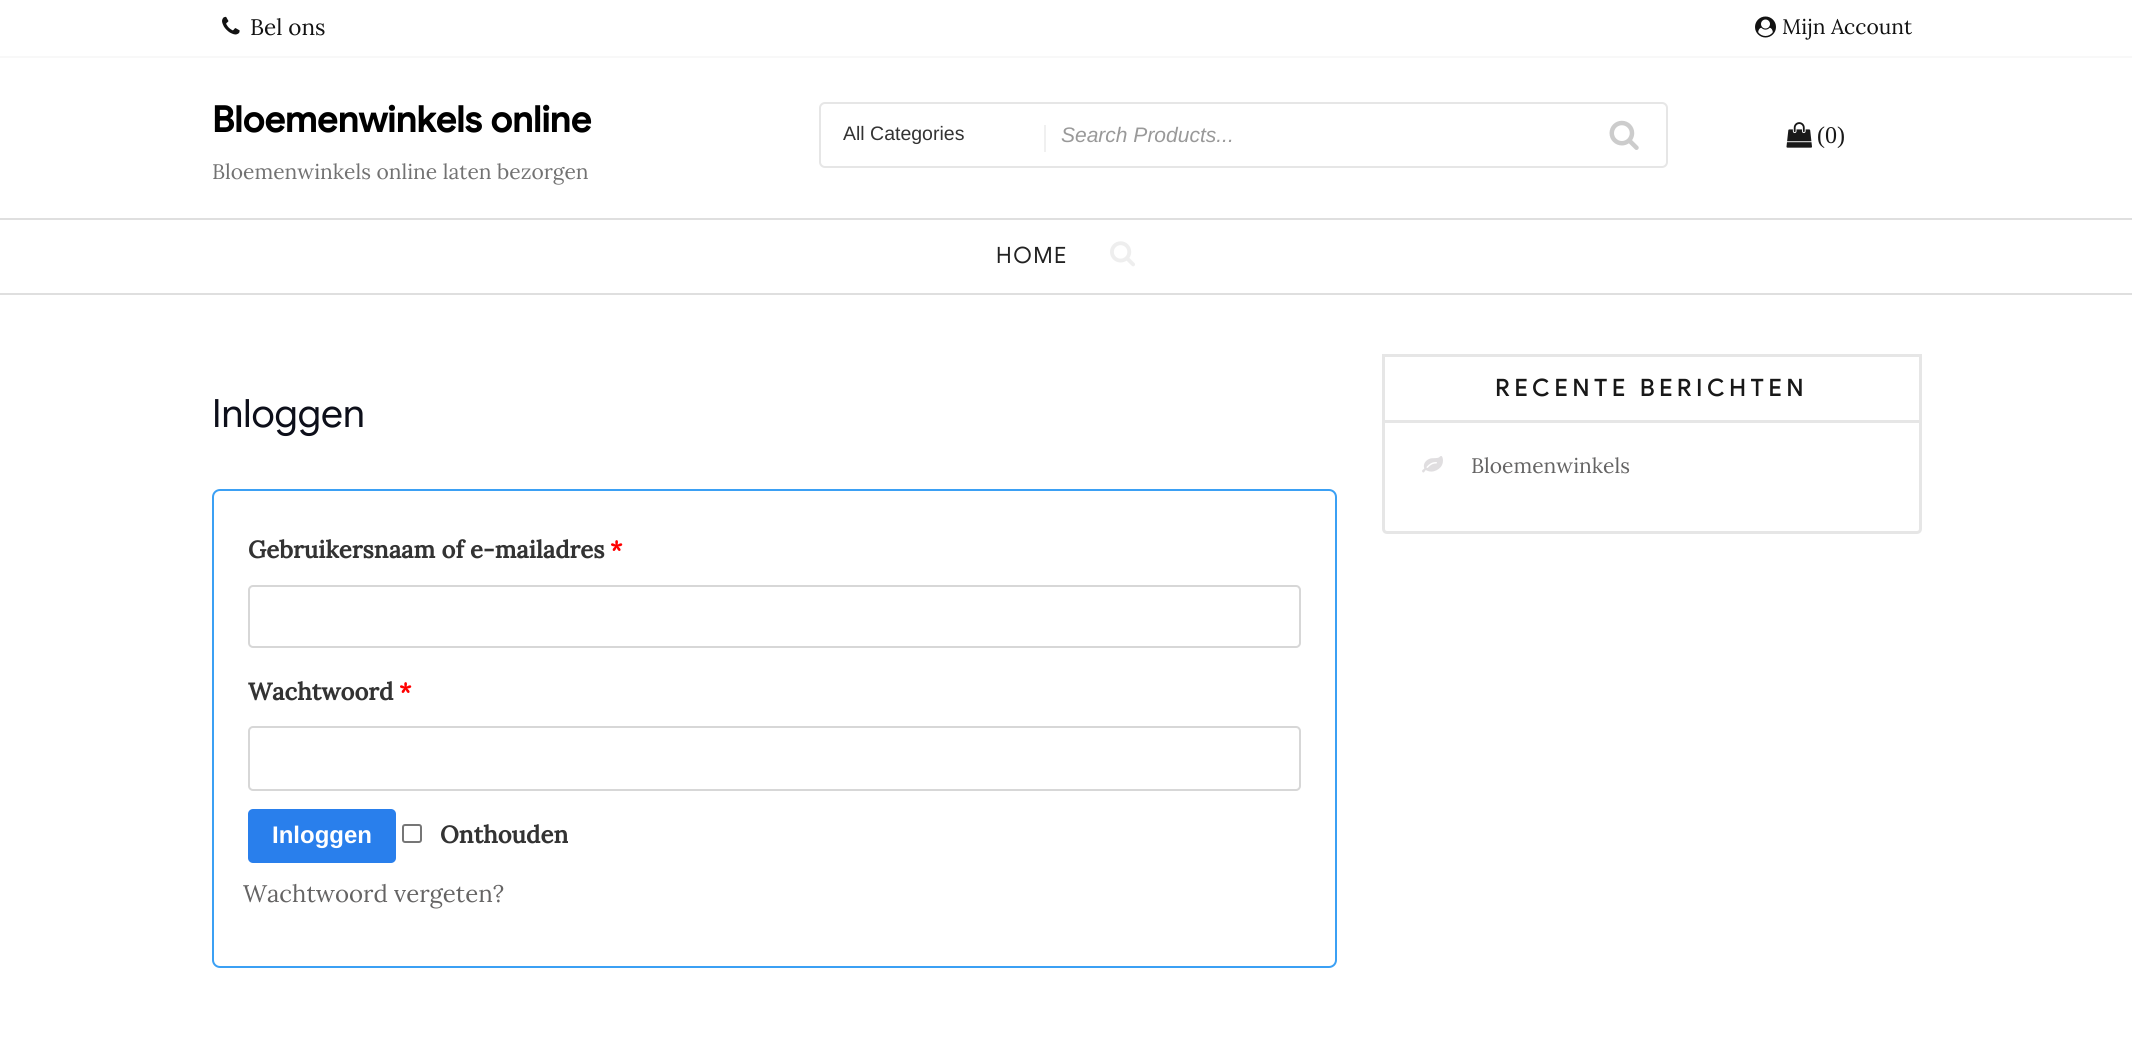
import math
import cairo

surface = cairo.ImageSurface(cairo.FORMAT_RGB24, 2132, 1053)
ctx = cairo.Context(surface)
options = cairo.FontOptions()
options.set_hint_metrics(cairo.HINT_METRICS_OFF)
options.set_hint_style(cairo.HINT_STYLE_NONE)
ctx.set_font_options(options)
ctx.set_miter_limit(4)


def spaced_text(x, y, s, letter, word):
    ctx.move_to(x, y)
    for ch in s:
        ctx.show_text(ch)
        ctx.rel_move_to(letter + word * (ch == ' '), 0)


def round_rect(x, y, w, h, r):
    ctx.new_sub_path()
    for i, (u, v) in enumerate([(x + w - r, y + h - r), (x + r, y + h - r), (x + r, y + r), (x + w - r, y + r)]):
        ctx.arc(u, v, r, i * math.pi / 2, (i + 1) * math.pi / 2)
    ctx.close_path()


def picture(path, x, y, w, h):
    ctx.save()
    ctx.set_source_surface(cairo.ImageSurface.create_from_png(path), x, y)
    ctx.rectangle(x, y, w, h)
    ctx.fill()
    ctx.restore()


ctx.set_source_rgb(1, 1, 1)
ctx.paint()
ctx.set_source_rgb(0.969, 0.969, 0.969)
ctx.rectangle(0, 56, 2132, 2)
ctx.fill()
picture("img1.png", 222, 16, 18, 19)
ctx.select_font_face("Lora")
ctx.set_font_size(22.5)
ctx.set_source_rgb(0.071, 0.071, 0.071)
ctx.move_to(250, 35)
ctx.show_text("Bel ons")
picture("img2.png", 1755, 16, 21, 22)
ctx.set_font_size(21)
ctx.move_to(1782, 34)
ctx.show_text("Mijn Account")
ctx.select_font_face("Google Sans", cairo.FONT_SLANT_NORMAL, cairo.FONT_WEIGHT_BOLD)
ctx.set_font_size(36)
ctx.set_source_rgb(0, 0, 0)
ctx.move_to(212, 132)
ctx.show_text("Bloemenwinkels online")
ctx.select_font_face("Lora")
ctx.set_font_size(21)
ctx.set_source_rgb(0.447, 0.447, 0.447)
ctx.move_to(212, 179)
ctx.show_text("Bloemenwinkels online laten bezorgen")
round_rect(820, 103, 847, 64, 5)
ctx.set_source_rgb(0.902, 0.902, 0.902)
ctx.stroke()
ctx.select_font_face("Liberation Sans")
ctx.set_font_size(19.5)
ctx.set_source_rgb(0.2, 0.2, 0.2)
ctx.move_to(843, 140)
ctx.show_text("All Categories")
ctx.set_source_rgb(0.941, 0.941, 0.941)
ctx.rectangle(1044, 125, 2, 27)
ctx.fill()
ctx.select_font_face("Liberation Sans", cairo.FONT_SLANT_ITALIC)
ctx.set_font_size(21)
ctx.set_source_rgb(0.6, 0.6, 0.6)
ctx.move_to(1061, 142)
ctx.show_text("Search Products...")
picture("img3.png", 1609, 120, 30, 30)
picture("img4.png", 1786, 122, 26, 26)
ctx.select_font_face("Liberation Serif")
ctx.set_font_size(24)
ctx.set_source_rgb(0.094, 0.094, 0.094)
ctx.move_to(1817, 143)
ctx.show_text("(0)")
ctx.set_source_rgb(0.875, 0.875, 0.875)
ctx.rectangle(0, 218, 2132, 2)
ctx.fill()
ctx.rectangle(0, 293, 2132, 2)
ctx.fill()
ctx.select_font_face("Google Sans")
ctx.set_font_size(22.5)
ctx.set_source_rgb(0.133, 0.133, 0.133)
spaced_text(996, 263, "HOME", 1.5, 0)
picture("img5.png", 1110, 241, 25, 26)
ctx.set_font_size(39)
ctx.set_source_rgb(0.051, 0.059, 0.102)
ctx.move_to(212, 427)
ctx.show_text("Inloggen")
round_rect(213, 490, 1123, 477, 7)
ctx.set_source_rgb(0.231, 0.627, 0.957)
ctx.stroke()
ctx.select_font_face("Lora", cairo.FONT_SLANT_NORMAL, cairo.FONT_WEIGHT_BOLD)
ctx.set_font_size(24)
ctx.set_source_rgb(0.2, 0.2, 0.2)
ctx.move_to(248, 558)
ctx.show_text("Gebruikersnaam of e-mailadres")
ctx.set_source_rgb(1, 0, 0)
ctx.move_to(610, 558)
ctx.show_text("*")
round_rect(249, 586, 1051, 61, 4)
ctx.set_source_rgb(0.843, 0.843, 0.843)
ctx.stroke()
ctx.set_source_rgb(0.2, 0.2, 0.2)
ctx.move_to(248, 700)
ctx.show_text("Wachtwoord")
ctx.set_source_rgb(1, 0, 0)
ctx.move_to(399, 700)
ctx.show_text("*")
round_rect(249, 727, 1051, 63, 4)
ctx.set_source_rgb(0.843, 0.843, 0.843)
ctx.stroke()
ctx.set_source_rgb(0.161, 0.498, 0.925)
round_rect(248, 809, 148, 54, 5)
ctx.fill()
ctx.select_font_face("Liberation Sans", cairo.FONT_SLANT_NORMAL, cairo.FONT_WEIGHT_BOLD)
ctx.set_source_rgb(1, 1, 1)
ctx.move_to(272, 843)
ctx.show_text("Inloggen")
round_rect(403, 825, 18, 17, 2)
ctx.set_source_rgb(0.463, 0.463, 0.463)
ctx.stroke()
ctx.select_font_face("Lora", cairo.FONT_SLANT_NORMAL, cairo.FONT_WEIGHT_BOLD)
ctx.set_source_rgb(0.2, 0.2, 0.2)
ctx.move_to(440, 843)
ctx.show_text("Onthouden")
ctx.select_font_face("Lora")
ctx.set_source_rgb(0.396, 0.392, 0.392)
ctx.move_to(243, 902)
ctx.show_text("Wachtwoord vergeten?")
ctx.new_path()
ctx.move_to(1383.5, 355.5)
ctx.line_to(1920.5, 355.5)
ctx.line_to(1920.5, 529)
ctx.curve_to(1920.5, 531, 1919, 532.5, 1917, 532.5)
ctx.line_to(1387, 532.5)
ctx.curve_to(1385, 532.5, 1383.5, 531, 1383.5, 529)
ctx.close_path()
ctx.set_source_rgb(0.902, 0.902, 0.902)
ctx.set_line_width(3)
ctx.stroke()
ctx.rectangle(1385, 420, 534, 3)
ctx.fill()
ctx.select_font_face("Google Sans Medium")
ctx.set_source_rgb(0.094, 0.094, 0.094)
spaced_text(1495, 396, "RECENTE BERICHTEN", 4.4, 0)
picture("img6.png", 1422, 456, 21, 17)
ctx.select_font_face("Lora")
ctx.set_font_size(21)
ctx.set_source_rgb(0.396, 0.392, 0.392)
ctx.move_to(1471, 473)
ctx.show_text("Bloemenwinkels")
surface.write_to_png("page.png")
